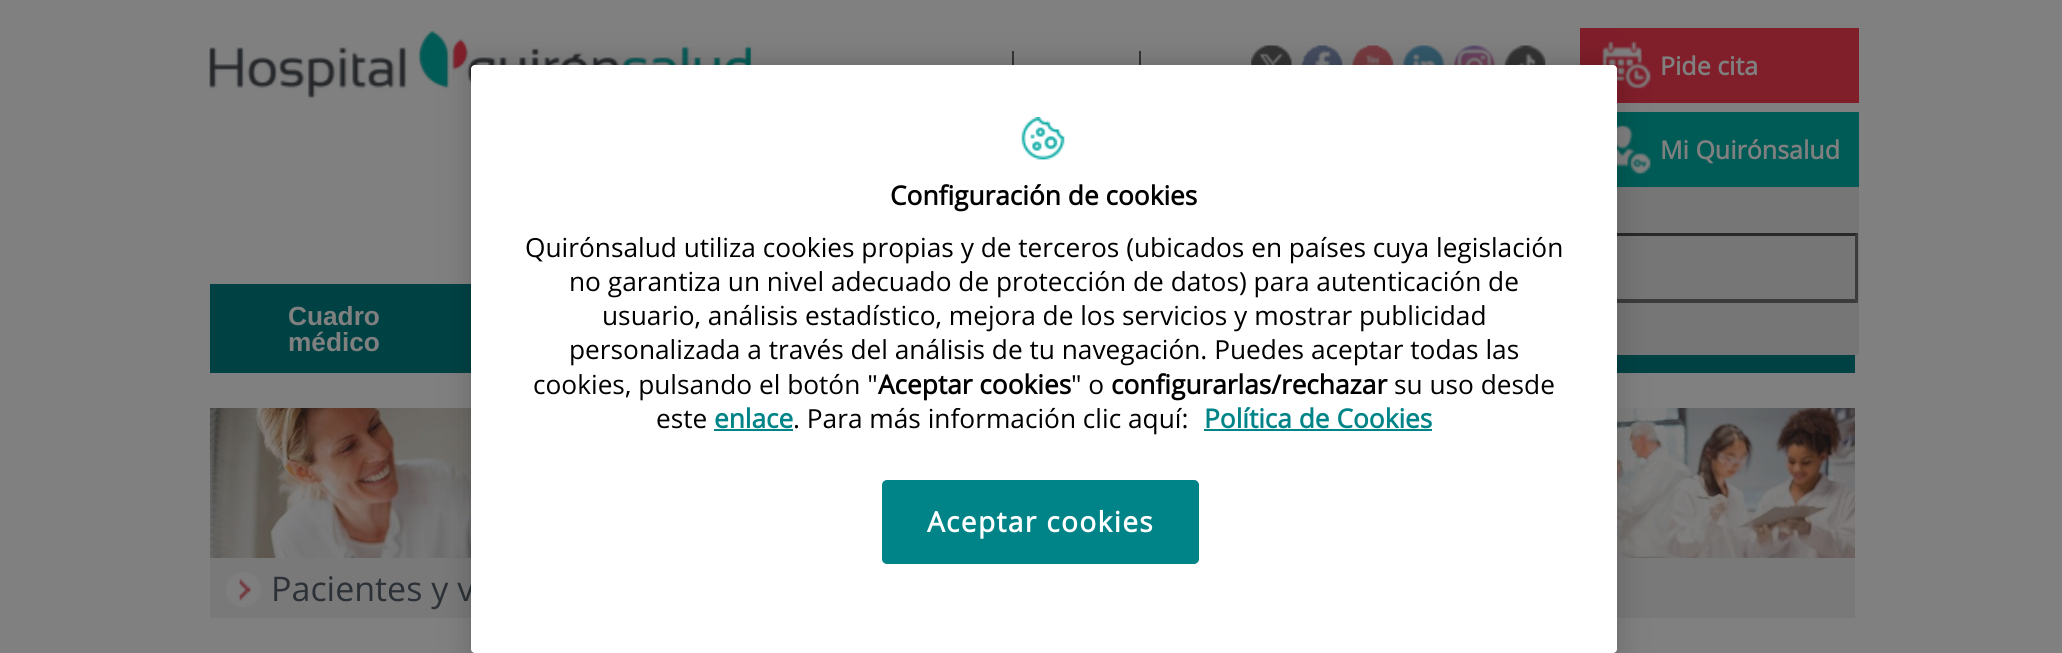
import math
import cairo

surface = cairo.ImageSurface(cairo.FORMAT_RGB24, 2062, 653)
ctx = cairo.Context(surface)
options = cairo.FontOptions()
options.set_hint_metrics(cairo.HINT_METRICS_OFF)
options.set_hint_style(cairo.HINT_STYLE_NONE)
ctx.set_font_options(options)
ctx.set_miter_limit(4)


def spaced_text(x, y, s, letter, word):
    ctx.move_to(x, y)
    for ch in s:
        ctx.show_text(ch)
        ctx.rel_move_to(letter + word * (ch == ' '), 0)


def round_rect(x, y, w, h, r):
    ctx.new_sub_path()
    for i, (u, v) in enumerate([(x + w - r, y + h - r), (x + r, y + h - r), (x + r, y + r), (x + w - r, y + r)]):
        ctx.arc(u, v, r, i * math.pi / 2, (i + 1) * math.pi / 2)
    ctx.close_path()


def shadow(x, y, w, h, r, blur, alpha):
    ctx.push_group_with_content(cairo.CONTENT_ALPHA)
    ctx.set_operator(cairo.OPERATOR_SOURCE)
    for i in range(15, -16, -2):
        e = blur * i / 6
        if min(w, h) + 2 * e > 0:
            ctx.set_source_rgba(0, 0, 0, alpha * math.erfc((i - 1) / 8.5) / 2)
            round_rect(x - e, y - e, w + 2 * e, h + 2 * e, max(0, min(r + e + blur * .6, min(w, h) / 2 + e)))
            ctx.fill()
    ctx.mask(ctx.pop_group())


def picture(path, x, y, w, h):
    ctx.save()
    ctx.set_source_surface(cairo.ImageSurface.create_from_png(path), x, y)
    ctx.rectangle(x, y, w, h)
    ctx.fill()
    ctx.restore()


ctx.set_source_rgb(0.502, 0.502, 0.502)
ctx.paint()
picture("img1.png", 209, 31, 544, 68)
ctx.set_source_rgb(0.204, 0.204, 0.204)
ctx.rectangle(1012, 51, 2, 14)
ctx.fill()
ctx.rectangle(1139, 51, 2, 14)
ctx.fill()
picture("img2.png", 1251, 45, 42, 20)
picture("img3.png", 1301, 45, 42, 20)
picture("img4.png", 1352, 45, 42, 20)
picture("img5.png", 1403, 45, 42, 20)
picture("img6.png", 1454, 45, 42, 20)
picture("img7.png", 1504, 45, 42, 20)
ctx.set_source_rgb(0.502, 0.118, 0.165)
ctx.rectangle(1580, 28, 279, 75)
ctx.fill()
picture("img8.png", 1602, 41, 49, 48)
ctx.select_font_face("Open Sans", cairo.FONT_SLANT_NORMAL, cairo.FONT_WEIGHT_BOLD)
ctx.set_font_size(25)
ctx.set_source_rgb(0.502, 0.502, 0.502)
ctx.move_to(1660, 75)
ctx.show_text("Pide cita")
ctx.set_source_rgb(0, 0.353, 0.333)
ctx.rectangle(1617, 112, 242, 75)
ctx.fill()
picture("img9.png", 1617, 125, 34, 49)
ctx.set_source_rgb(0.502, 0.502, 0.502)
ctx.move_to(1660, 159)
ctx.show_text("Mi Quirónsalud")
ctx.set_source_rgb(0, 0.259, 0.267)
ctx.rectangle(210, 284, 1645, 89)
ctx.fill()
ctx.set_source_rgb(0.463, 0.463, 0.463)
ctx.rectangle(1617, 187, 242, 168)
ctx.fill()
ctx.set_source_rgb(0.157, 0.157, 0.157)
ctx.new_path()
ctx.move_to(1474, 233)
ctx.line_to(1858, 233)
ctx.line_to(1855, 236)
ctx.line_to(1477, 236)
ctx.close_path()
ctx.fill()
ctx.set_source_rgb(0.231, 0.231, 0.231)
ctx.new_path()
ctx.move_to(1858, 233)
ctx.line_to(1858, 303)
ctx.line_to(1855, 299)
ctx.line_to(1855, 236)
ctx.close_path()
ctx.fill()
ctx.new_path()
ctx.move_to(1858, 303)
ctx.line_to(1474, 303)
ctx.line_to(1477, 299)
ctx.line_to(1855, 299)
ctx.close_path()
ctx.fill()
ctx.select_font_face("Liberation Sans", cairo.FONT_SLANT_NORMAL, cairo.FONT_WEIGHT_BOLD)
ctx.set_font_size(26.25)
ctx.set_source_rgb(0.502, 0.502, 0.502)
ctx.move_to(288, 325)
ctx.show_text("Cuadro")
ctx.move_to(288, 351)
ctx.show_text("médico")
picture("img10.png", 210, 408, 261, 150)
ctx.set_source_rgb(0.475, 0.475, 0.475)
ctx.rectangle(210, 558, 261, 60)
ctx.fill()
picture("img11.png", 226, 572, 35, 35)
ctx.select_font_face("Open Sans")
ctx.set_font_size(34)
ctx.set_source_rgb(0.169, 0.192, 0.212)
ctx.move_to(271, 601)
ctx.show_text("Pacientes y v")
picture("img12.png", 1617, 408, 238, 150)
ctx.set_source_rgb(0.475, 0.475, 0.475)
ctx.rectangle(1617, 558, 238, 60)
ctx.fill()
ctx.set_source_rgb(0, 0, 0)
shadow(471, 65, 1146, 588, 4, 16, 0.2)
ctx.set_source_rgb(1, 1, 1)
round_rect(471, 65, 1146, 588, 4)
ctx.fill()
picture("img13.png", 1021, 117, 44, 43)
ctx.select_font_face("Open Sans", cairo.FONT_SLANT_NORMAL, cairo.FONT_WEIGHT_BOLD)
ctx.set_font_size(26.25)
ctx.set_source_rgb(0, 0, 0)
ctx.move_to(890, 205)
ctx.show_text("Configuración de cookies")
ctx.select_font_face("Open Sans")
ctx.move_to(525, 257)
ctx.show_text("Quirónsalud utiliza cookies propias y de terceros (ubicados en países cuya legislación")
ctx.move_to(569, 291)
ctx.show_text("no garantiza un nivel adecuado de protección de datos) para autenticación de")
ctx.move_to(602, 325)
ctx.show_text("usuario, análisis estadístico, mejora de los servicios y mostrar publicidad")
ctx.move_to(569, 359)
ctx.show_text("personalizada a través del análisis de tu navegación. Puedes aceptar todas las")
ctx.move_to(533, 394)
ctx.show_text("cookies, pulsando el botón \"")
ctx.select_font_face("Open Sans", cairo.FONT_SLANT_NORMAL, cairo.FONT_WEIGHT_BOLD)
ctx.move_to(878, 394)
ctx.show_text("Aceptar cookies")
ctx.select_font_face("Open Sans")
ctx.move_to(1071, 394)
ctx.show_text("\" o")
ctx.select_font_face("Open Sans", cairo.FONT_SLANT_NORMAL, cairo.FONT_WEIGHT_BOLD)
ctx.move_to(1111, 394)
ctx.show_text("configurarlas/rechazar")
ctx.select_font_face("Open Sans")
ctx.move_to(1394, 394)
ctx.show_text("su uso desde")
ctx.move_to(656, 428)
ctx.show_text("este")
ctx.select_font_face("Open Sans", cairo.FONT_SLANT_NORMAL, cairo.FONT_WEIGHT_BOLD)
ctx.set_source_rgb(0, 0.518, 0.533)
ctx.move_to(714, 428)
ctx.show_text("enlace")
ctx.rectangle(714, 429, 79, 2)
ctx.fill()
ctx.select_font_face("Open Sans")
ctx.set_source_rgb(0, 0, 0)
ctx.move_to(793, 428)
ctx.show_text(". Para más información clic aquí:")
ctx.select_font_face("Open Sans", cairo.FONT_SLANT_NORMAL, cairo.FONT_WEIGHT_BOLD)
ctx.set_source_rgb(0, 0.518, 0.533)
ctx.move_to(1204, 428)
ctx.show_text("Política de Cookies")
ctx.rectangle(1204, 429, 228, 2)
ctx.fill()
round_rect(883, 481, 315, 82, 4)
ctx.fill_preserve()
ctx.stroke()
ctx.set_font_size(28)
ctx.set_source_rgb(1, 1, 1)
spaced_text(927, 532, "Aceptar cookies", 1.4, 0)
surface.write_to_png("page.png")
